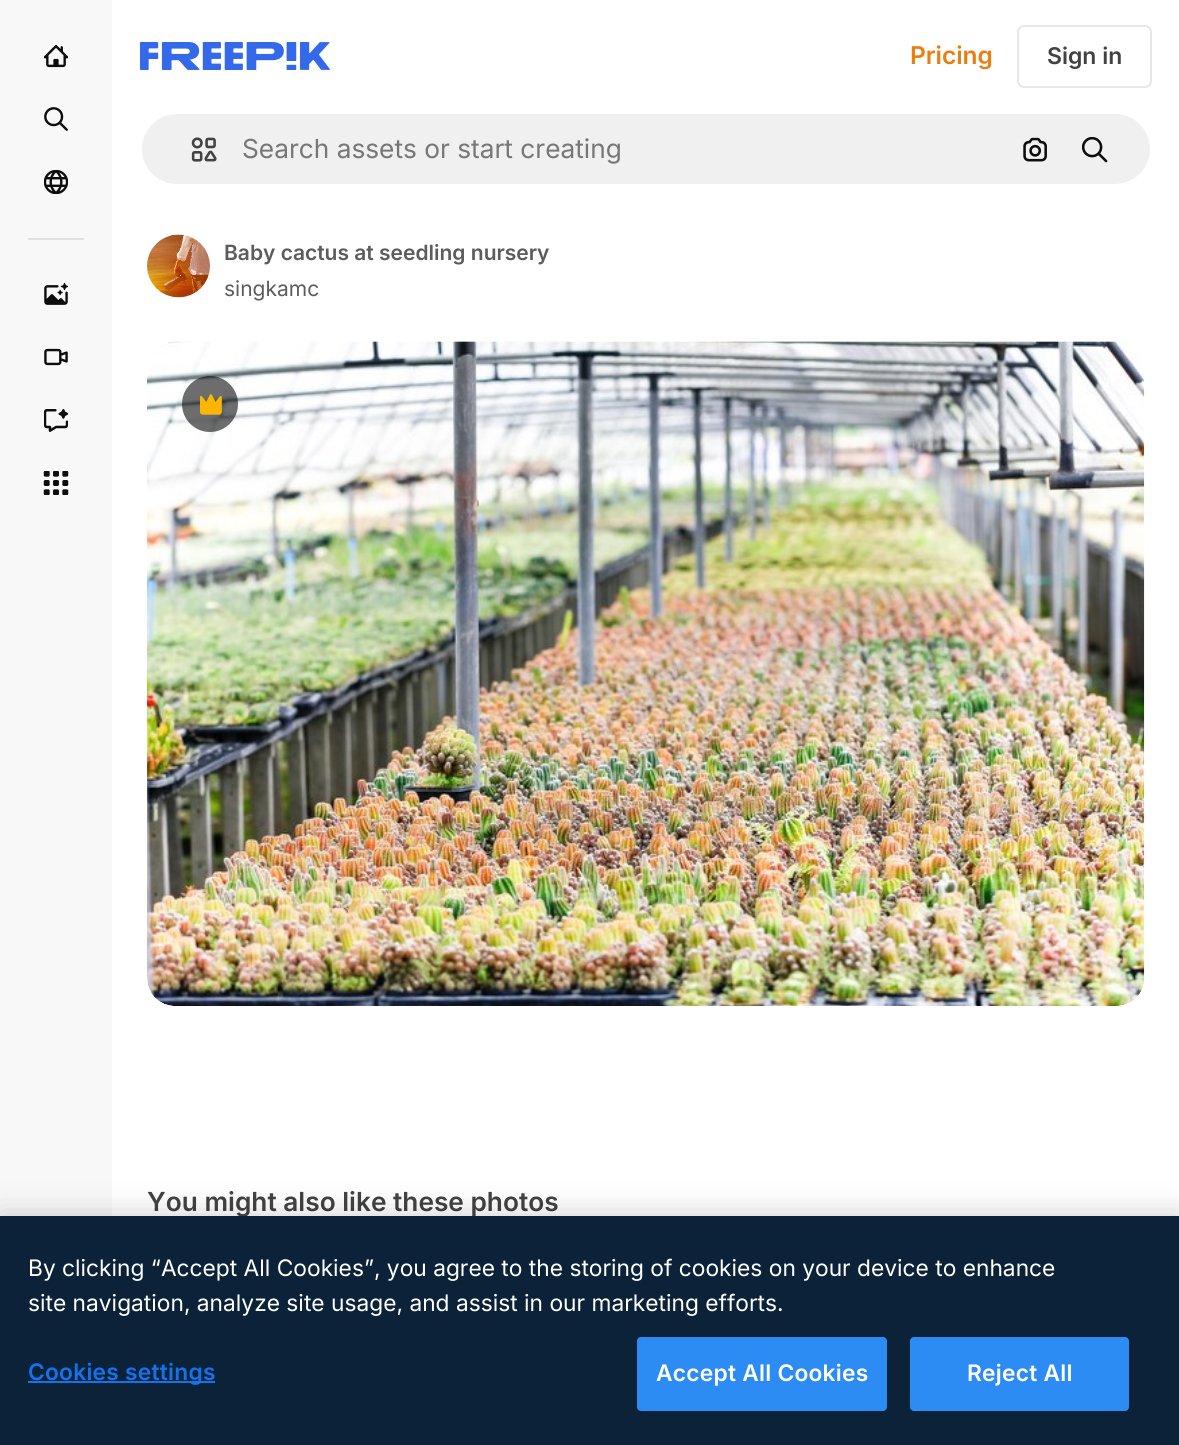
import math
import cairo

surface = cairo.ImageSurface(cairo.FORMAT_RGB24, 1179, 1445)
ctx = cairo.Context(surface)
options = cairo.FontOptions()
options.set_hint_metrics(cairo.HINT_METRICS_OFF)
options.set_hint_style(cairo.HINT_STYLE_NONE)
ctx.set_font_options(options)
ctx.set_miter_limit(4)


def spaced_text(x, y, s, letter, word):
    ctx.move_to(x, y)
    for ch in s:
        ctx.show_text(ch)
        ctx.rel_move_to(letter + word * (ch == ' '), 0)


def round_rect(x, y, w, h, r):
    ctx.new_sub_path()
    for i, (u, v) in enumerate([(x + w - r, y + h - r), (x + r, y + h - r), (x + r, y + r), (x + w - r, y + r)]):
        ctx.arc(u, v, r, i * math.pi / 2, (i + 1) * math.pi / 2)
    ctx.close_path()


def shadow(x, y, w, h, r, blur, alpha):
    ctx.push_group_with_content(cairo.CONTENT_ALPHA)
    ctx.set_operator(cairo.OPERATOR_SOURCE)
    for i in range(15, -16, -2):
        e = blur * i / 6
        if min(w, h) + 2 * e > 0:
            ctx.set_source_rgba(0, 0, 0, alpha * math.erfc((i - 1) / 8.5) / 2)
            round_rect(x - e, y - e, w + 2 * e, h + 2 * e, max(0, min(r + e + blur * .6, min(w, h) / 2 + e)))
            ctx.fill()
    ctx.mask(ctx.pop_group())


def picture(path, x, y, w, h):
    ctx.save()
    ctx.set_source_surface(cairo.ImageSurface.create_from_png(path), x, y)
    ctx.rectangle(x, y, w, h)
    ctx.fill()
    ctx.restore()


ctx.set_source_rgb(1, 1, 1)
ctx.paint()
ctx.set_source_rgb(0.969, 0.969, 0.969)
ctx.rectangle(0, 0, 112, 1216)
ctx.fill()
picture("img1.png", 44, 45, 24, 23)
picture("img2.png", 44, 107, 24, 24)
picture("img3.png", 44, 170, 24, 24)
ctx.set_source_rgb(0.878, 0.878, 0.878)
ctx.rectangle(28, 238, 56, 2)
ctx.fill()
picture("img4.png", 44, 282, 24, 23)
picture("img5.png", 44, 348, 24, 18)
picture("img6.png", 44, 409, 24, 23)
picture("img7.png", 43, 471, 26, 24)
picture("img8.png", 140, 42, 190, 28)
ctx.select_font_face("Inter SemiBold")
ctx.set_font_size(24.5)
ctx.set_source_rgb(0.918, 0.494, 0.067)
ctx.move_to(910, 64)
ctx.show_text("Pricing")
round_rect(1018, 26, 133, 61, 6)
ctx.set_source_rgb(0.906, 0.906, 0.906)
ctx.stroke()
ctx.set_font_size(23)
ctx.set_source_rgb(0.259, 0.259, 0.259)
ctx.move_to(1047, 64)
ctx.show_text("Sign in")
ctx.set_source_rgb(0.941, 0.941, 0.941)
round_rect(141, 113, 1010, 72, 36)
ctx.fill_preserve()
ctx.set_source_rgb(1, 1, 1)
ctx.stroke()
picture("img9.png", 191, 137, 26, 25)
ctx.select_font_face("Inter")
ctx.set_font_size(26.25)
ctx.set_source_rgb(0.467, 0.467, 0.467)
ctx.move_to(242, 158)
ctx.show_text("Search assets or start creating")
picture("img10.png", 1023, 137, 24, 25)
picture("img11.png", 1082, 137, 26, 26)
picture("img12.png", 147, 234, 63, 64)
ctx.select_font_face("Inter SemiBold")
ctx.set_font_size(21)
ctx.set_source_rgb(0.361, 0.361, 0.361)
ctx.move_to(224, 260)
ctx.show_text("Baby cactus at seedling nursery")
ctx.select_font_face("Inter")
ctx.move_to(224, 296)
ctx.show_text("singkamc")
picture("img13.png", 147, 341, 998, 665)
ctx.set_source_rgba(0.051, 0.051, 0.051, 0.6)
ctx.arc(210, 404, 28, 0, 2 * math.pi)
ctx.fill()
picture("img14.png", 200, 394, 22, 21)
ctx.select_font_face("Inter SemiBold")
ctx.set_font_size(26.25)
ctx.set_source_rgb(0.259, 0.259, 0.259)
ctx.move_to(147, 1211)
ctx.show_text("You might also like these photos")
ctx.set_source_rgb(0, 0, 0)
shadow(0, 1216, 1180, 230, 0, 16, 0.2)
ctx.set_source_rgb(0.043, 0.133, 0.224)
ctx.rectangle(0, 1216, 1179, 229)
ctx.fill()
ctx.select_font_face("Inter")
ctx.set_font_size(22.75)
ctx.set_source_rgb(1, 1, 1)
ctx.move_to(28, 1276)
ctx.show_text("By clicking “Accept All Cookies”, you agree to the storing of cookies on your device to enhance")
ctx.move_to(28, 1311)
ctx.show_text("site navigation, analyze site usage, and assist in our marketing efforts.")
ctx.set_source_rgb(0.071, 0.451, 0.922)
ctx.rectangle(28, 1381, 187, 2)
ctx.fill()
ctx.select_font_face("Inter SemiBold")
spaced_text(28, 1380, "Cookies settings", 0.25, 0)
ctx.set_source_rgb(0.173, 0.549, 0.957)
round_rect(638, 1338, 248, 72, 3)
ctx.fill_preserve()
ctx.stroke()
ctx.set_source_rgb(1, 1, 1)
spaced_text(656, 1381, "Accept All Cookies", 0.25, 0)
ctx.set_source_rgb(0.173, 0.549, 0.957)
round_rect(911, 1338, 217, 72, 3)
ctx.fill_preserve()
ctx.stroke()
ctx.set_source_rgb(1, 1, 1)
spaced_text(967, 1381, "Reject All", 0.25, 0)
surface.write_to_png("page.png")
